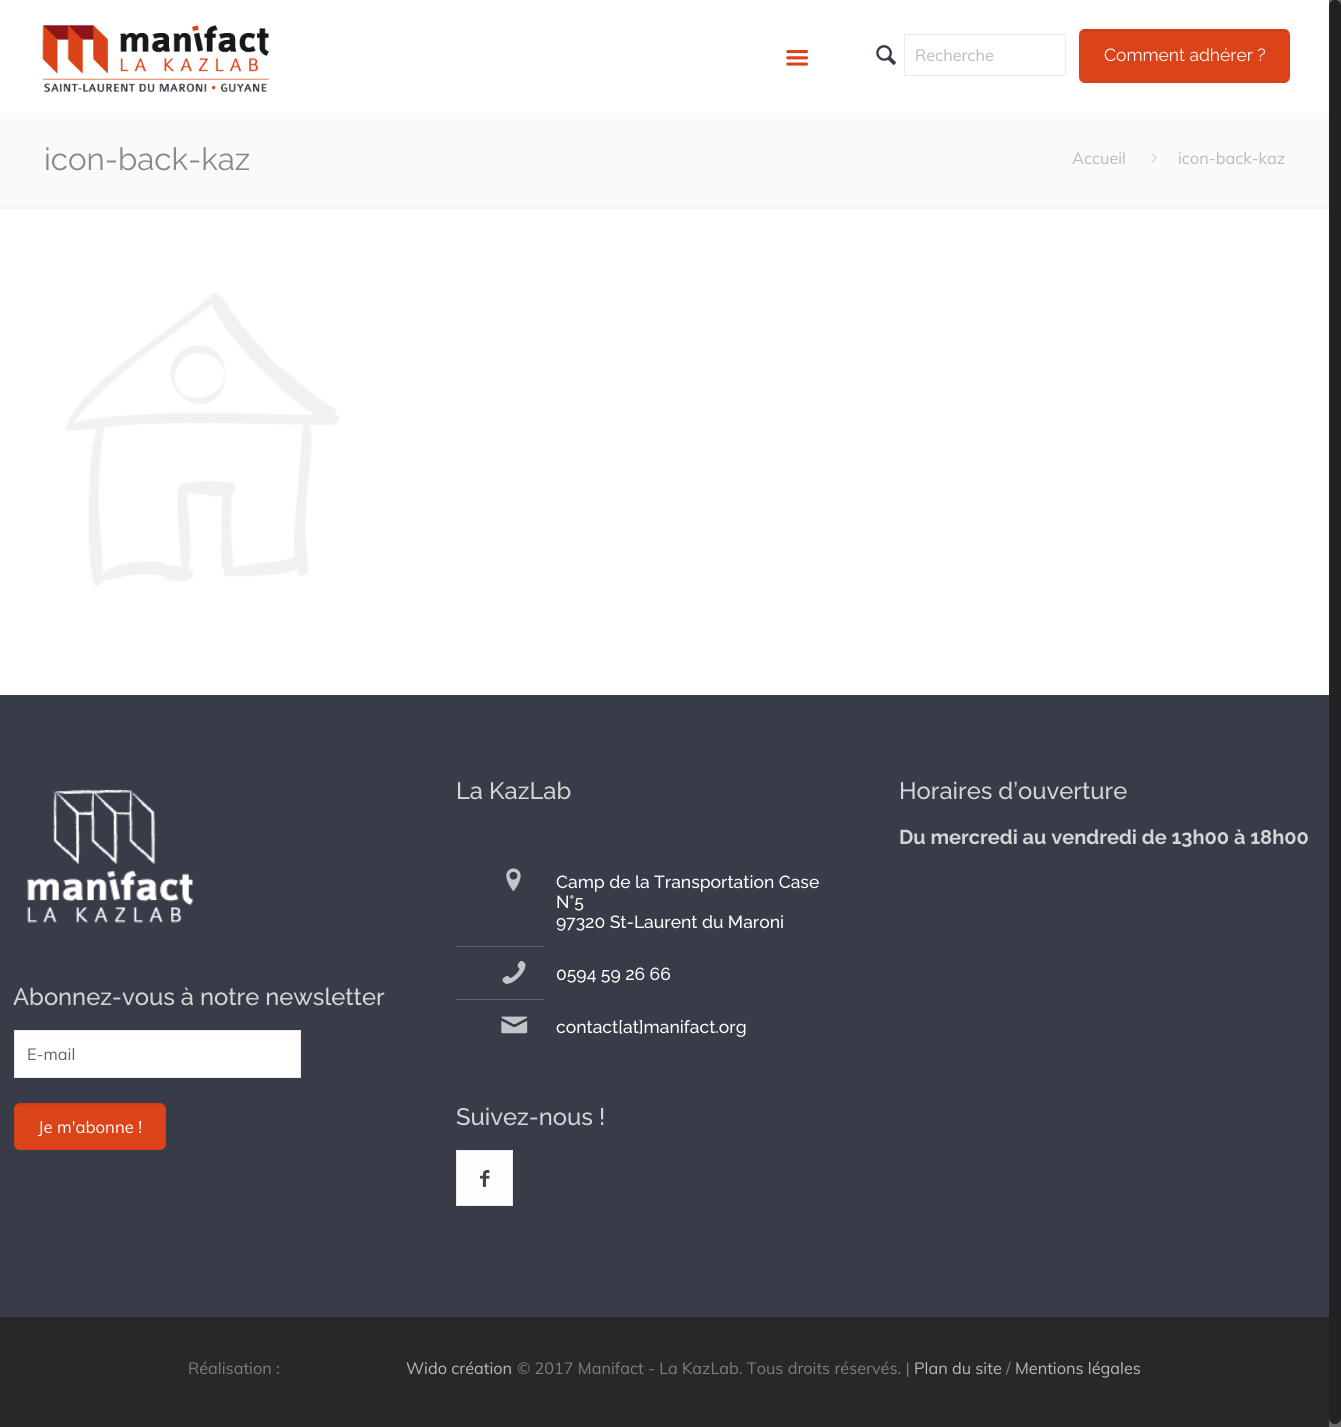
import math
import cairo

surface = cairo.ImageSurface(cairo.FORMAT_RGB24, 1341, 1427)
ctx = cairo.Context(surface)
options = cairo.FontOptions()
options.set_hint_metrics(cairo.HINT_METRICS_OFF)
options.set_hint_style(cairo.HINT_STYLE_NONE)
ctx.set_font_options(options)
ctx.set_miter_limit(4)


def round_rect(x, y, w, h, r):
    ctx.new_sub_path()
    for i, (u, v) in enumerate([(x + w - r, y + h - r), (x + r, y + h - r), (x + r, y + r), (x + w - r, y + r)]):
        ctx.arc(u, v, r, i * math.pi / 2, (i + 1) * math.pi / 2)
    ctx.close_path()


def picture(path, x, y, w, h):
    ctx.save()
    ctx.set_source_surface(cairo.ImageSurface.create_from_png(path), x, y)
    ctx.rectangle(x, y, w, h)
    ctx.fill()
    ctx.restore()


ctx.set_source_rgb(1, 1, 1)
ctx.paint()
picture("img1.png", 42, 25, 228, 68)
picture("img2.png", 786, 50, 23, 16)
picture("img3.png", 876, 45, 20, 20)
ctx.rectangle(904.5, 34.5, 161, 41)
ctx.set_source_rgb(0.922, 0.922, 0.922)
ctx.set_line_width(1)
ctx.stroke()
ctx.select_font_face("Muli")
ctx.set_font_size(16.25)
ctx.set_source_rgb(0.729, 0.729, 0.729)
ctx.move_to(915, 61)
ctx.show_text("Recherche")
ctx.set_source_rgb(0.859, 0.263, 0.094)
round_rect(1079, 29, 211, 54, 6)
ctx.fill()
ctx.set_source_rgba(0, 0, 0, 0.05)
ctx.rectangle(1080, 29, 209, 3)
ctx.fill()
ctx.rectangle(1079.5, 29.5, 210, 53)
ctx.set_source_rgba(0, 0, 0, 0.03)
ctx.stroke()
ctx.select_font_face("Raleway")
ctx.set_font_size(17.5)
ctx.set_source_rgb(1, 1, 1)
ctx.move_to(1104, 61)
ctx.show_text("Comment adhérer ?")
ctx.set_source_rgb(0.98, 0.98, 0.98)
ctx.rectangle(0, 113, 1329, 93)
ctx.fill()
ctx.set_font_size(31.25)
ctx.set_source_rgb(0.533, 0.533, 0.533)
ctx.move_to(44, 170)
ctx.show_text("icon-back-kaz")
ctx.select_font_face("Muli")
ctx.set_font_size(16.25)
ctx.set_source_rgb(0.729, 0.729, 0.729)
ctx.move_to(1072, 164)
ctx.show_text("Accueil")
picture("img4.png", 1151, 153, 6, 10)
ctx.move_to(1178, 164)
ctx.show_text("icon-back-kaz")
ctx.set_source_rgb(0.961, 0.961, 0.961)
ctx.rectangle(0, 206, 1329, 3)
ctx.fill()
picture("img5.png", 65, 292, 274, 294)
ctx.set_source_rgb(0.22, 0.231, 0.282)
ctx.rectangle(0, 695, 1329, 621)
ctx.fill()
ctx.select_font_face("Raleway Medium")
ctx.set_font_size(23.75)
ctx.set_source_rgb(0.835, 0.835, 0.835)
ctx.move_to(456, 799)
ctx.show_text("La KazLab")
picture("img6.png", 506, 868, 15, 24)
ctx.set_font_size(17.5)
ctx.set_source_rgb(1, 1, 1)
ctx.move_to(556, 888)
ctx.show_text("Camp de la Transportation Case")
ctx.move_to(556, 908)
ctx.show_text("N°5")
ctx.move_to(556, 928)
ctx.show_text("97320 St-Laurent du Maroni")
ctx.set_source_rgb(0.376, 0.384, 0.427)
ctx.rectangle(456, 946, 88, 1)
ctx.fill()
picture("img7.png", 502, 960, 24, 24)
ctx.set_source_rgb(1, 1, 1)
ctx.move_to(556, 980)
ctx.show_text("0594 59 26 66")
ctx.set_source_rgb(0.376, 0.384, 0.427)
ctx.rectangle(456, 999, 88, 1)
ctx.fill()
picture("img8.png", 501, 1016, 27, 18)
ctx.set_source_rgb(1, 1, 1)
ctx.move_to(556, 1033)
ctx.show_text("contact[at]manifact.org")
ctx.set_font_size(23.75)
ctx.set_source_rgb(0.835, 0.835, 0.835)
ctx.move_to(456, 1125)
ctx.show_text("Suivez-nous !")
ctx.set_source_rgb(1, 1, 1)
ctx.rectangle(456, 1150, 57, 56)
ctx.fill()
picture("img9.png", 459, 1150, 52, 56)
ctx.rectangle(456.5, 1150.5, 56, 55)
ctx.set_source_rgba(0, 0, 0, 0.08)
ctx.stroke()
picture("img10.png", 480, 1170, 10, 17)
ctx.set_source_rgb(0.835, 0.835, 0.835)
ctx.move_to(899, 799)
ctx.show_text("Horaires d’ouverture")
ctx.select_font_face("Raleway", cairo.FONT_SLANT_NORMAL, cairo.FONT_WEIGHT_BOLD)
ctx.set_font_size(20)
ctx.move_to(899, 844)
ctx.show_text("Du mercredi au vendredi de 13h00 à 18h00")
picture("img11.png", 27, 789, 167, 134)
ctx.select_font_face("Raleway Medium")
ctx.set_font_size(23.75)
ctx.move_to(13, 1005)
ctx.show_text("Abonnez-vous à notre newsletter")
ctx.set_source_rgb(1, 1, 1)
ctx.rectangle(14.5, 1030.5, 286, 47)
ctx.fill_preserve()
ctx.set_source_rgb(0.922, 0.922, 0.922)
ctx.stroke()
ctx.select_font_face("Muli")
ctx.set_font_size(16.25)
ctx.set_source_rgb(0.384, 0.384, 0.384)
ctx.move_to(27, 1060)
ctx.show_text("E-mail")
ctx.set_source_rgb(0.859, 0.263, 0.094)
round_rect(14, 1103, 152, 47, 6)
ctx.fill()
ctx.set_source_rgba(0, 0, 0, 0.05)
ctx.rectangle(15, 1103, 150, 3)
ctx.fill()
ctx.rectangle(14.5, 1103.5, 151, 46)
ctx.set_source_rgba(0, 0, 0, 0.03)
ctx.stroke()
ctx.set_font_size(16.75)
ctx.set_source_rgb(1, 1, 1)
ctx.move_to(38, 1133)
ctx.show_text("Je m'abonne !")
ctx.set_source_rgb(0.157, 0.157, 0.157)
ctx.rectangle(0, 1317, 1329, 110)
ctx.fill()
ctx.set_source_rgb(0.243, 0.243, 0.243)
ctx.rectangle(0, 1316, 1329, 1)
ctx.fill()
ctx.set_font_size(16.25)
ctx.set_source_rgb(0.494, 0.494, 0.494)
ctx.move_to(188, 1374)
ctx.show_text("Réalisation :")
ctx.set_source_rgb(0.729, 0.729, 0.729)
ctx.move_to(406, 1374)
ctx.show_text("Wido création")
ctx.set_source_rgb(0.494, 0.494, 0.494)
ctx.move_to(517, 1374)
ctx.show_text("© 2017 Manifact - La KazLab. Tous droits réservés. |")
ctx.set_source_rgb(0.729, 0.729, 0.729)
ctx.move_to(914, 1374)
ctx.show_text("Plan du site")
ctx.set_source_rgb(0.494, 0.494, 0.494)
ctx.move_to(1006, 1374)
ctx.show_text("/")
ctx.set_source_rgb(0.729, 0.729, 0.729)
ctx.move_to(1015, 1374)
ctx.show_text("Mentions légales")
ctx.set_source_rgb(0.4, 0.4, 0.4)
ctx.rectangle(1329, 0, 12, 1427)
ctx.fill()
ctx.set_source_rgb(0.133, 0.133, 0.133)
round_rect(1329, 0, 12, 1424, 6)
ctx.fill()
surface.write_to_png("page.png")
